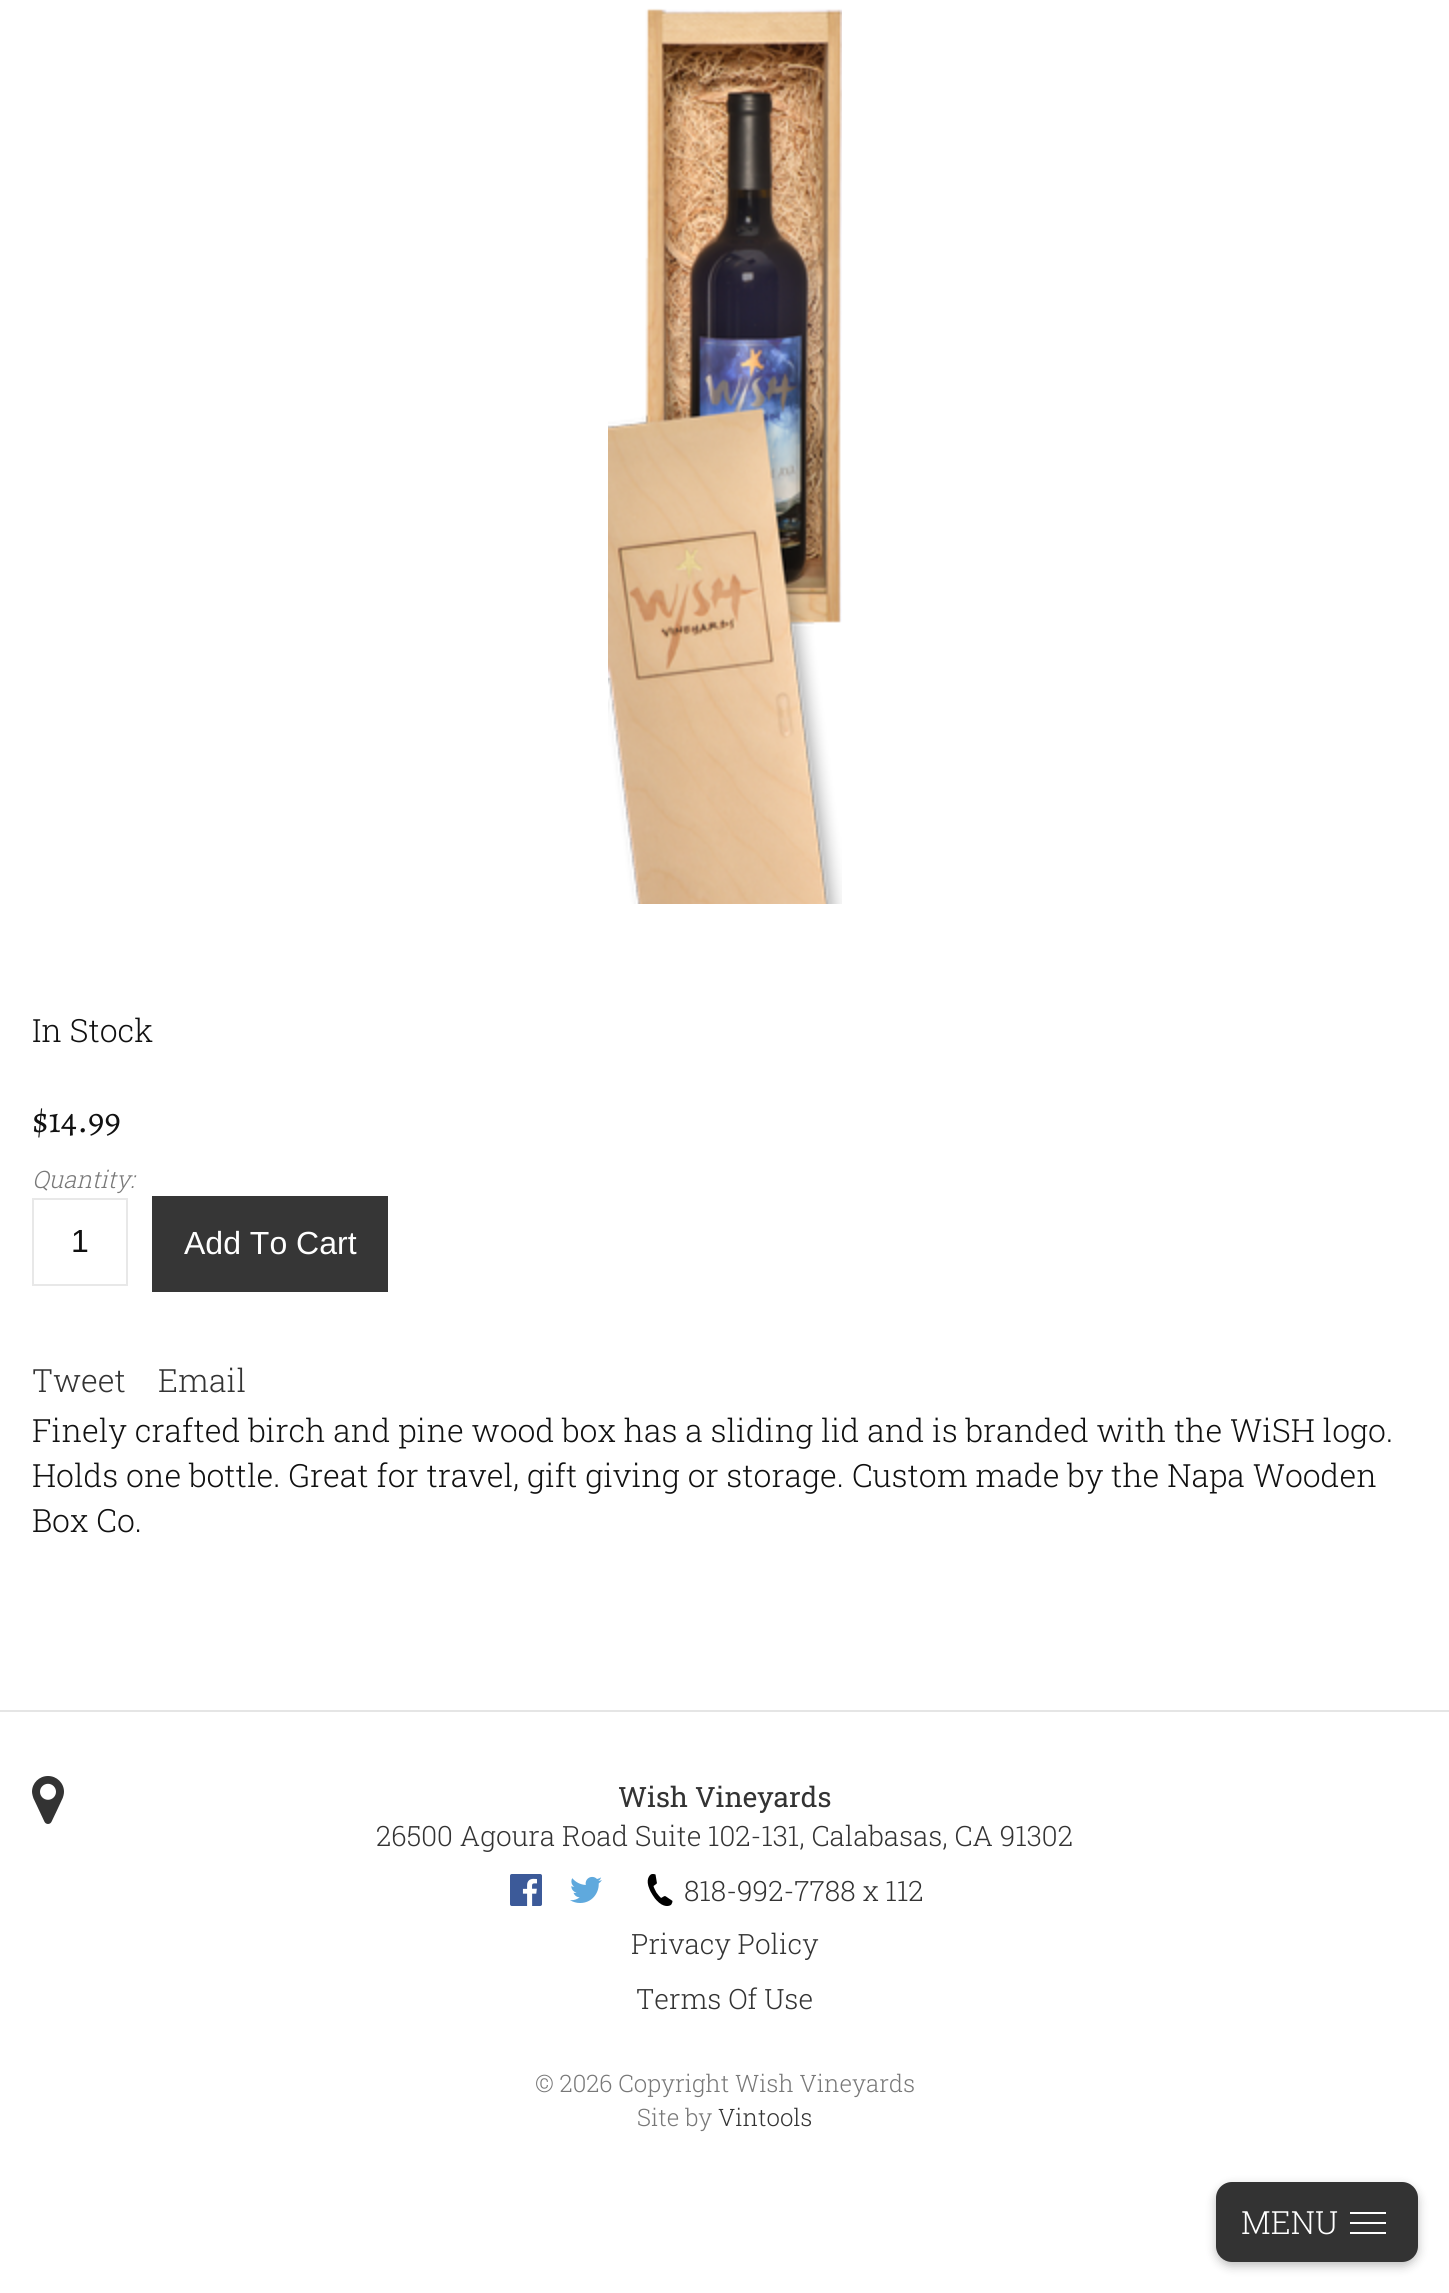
import math
import cairo

surface = cairo.ImageSurface(cairo.FORMAT_RGB24, 1449, 2293)
ctx = cairo.Context(surface)
options = cairo.FontOptions()
options.set_hint_metrics(cairo.HINT_METRICS_OFF)
options.set_hint_style(cairo.HINT_STYLE_NONE)
ctx.set_font_options(options)
ctx.set_miter_limit(4)


def round_rect(x, y, w, h, r):
    ctx.new_sub_path()
    for i, (u, v) in enumerate([(x + w - r, y + h - r), (x + r, y + h - r), (x + r, y + r), (x + w - r, y + r)]):
        ctx.arc(u, v, r, i * math.pi / 2, (i + 1) * math.pi / 2)
    ctx.close_path()


def shadow(x, y, w, h, r, blur, alpha):
    ctx.push_group_with_content(cairo.CONTENT_ALPHA)
    ctx.set_operator(cairo.OPERATOR_SOURCE)
    for i in range(15, -16, -2):
        e = blur * i / 6
        if min(w, h) + 2 * e > 0:
            ctx.set_source_rgba(0, 0, 0, alpha * math.erfc((i - 1) / 8.5) / 2)
            round_rect(x - e, y - e, w + 2 * e, h + 2 * e, max(0, min(r + e + blur * .6, min(w, h) / 2 + e)))
            ctx.fill()
    ctx.mask(ctx.pop_group())


def picture(path, x, y, w, h):
    ctx.save()
    ctx.set_source_surface(cairo.ImageSurface.create_from_png(path), x, y)
    ctx.rectangle(x, y, w, h)
    ctx.fill()
    ctx.restore()


ctx.set_source_rgb(1, 1, 1)
ctx.paint()
picture("img1.png", 608, 8, 234, 896)
ctx.select_font_face("Roboto Slab Light")
ctx.set_font_size(32)
ctx.set_source_rgb(0.067, 0.067, 0.067)
ctx.move_to(32, 1042)
ctx.show_text("In Stock")
ctx.select_font_face("Alegreya")
ctx.set_font_size(36)
ctx.move_to(32, 1132)
ctx.show_text("$14.99")
ctx.select_font_face("Roboto Slab Light", cairo.FONT_SLANT_ITALIC)
ctx.set_font_size(24)
ctx.set_source_rgb(0.471, 0.471, 0.471)
ctx.move_to(32, 1188)
ctx.show_text("Quantity:")
ctx.rectangle(33, 1199, 94, 86)
ctx.set_source_rgb(0.91, 0.91, 0.91)
ctx.stroke()
ctx.select_font_face("Liberation Sans")
ctx.set_font_size(32)
ctx.set_source_rgb(0.067, 0.067, 0.067)
ctx.move_to(71, 1252)
ctx.show_text("1")
ctx.set_source_rgb(0.212, 0.212, 0.212)
ctx.rectangle(152, 1196, 236, 96)
ctx.fill()
ctx.set_source_rgb(1, 1, 1)
ctx.move_to(184, 1254)
ctx.show_text("Add To Cart")
ctx.select_font_face("Roboto Slab Light")
ctx.set_source_rgb(0.2, 0.2, 0.2)
ctx.move_to(32, 1392)
ctx.show_text("Tweet")
ctx.move_to(158, 1392)
ctx.show_text("Email")
ctx.set_source_rgb(0.067, 0.067, 0.067)
ctx.move_to(32, 1442)
ctx.show_text("Finely crafted birch and pine wood box has a sliding lid and is branded with the WiSH logo.")
ctx.move_to(32, 1487)
ctx.show_text("Holds one bottle. Great for travel, gift giving or storage. Custom made by the Napa Wooden")
ctx.move_to(32, 1532)
ctx.show_text("Box Co.")
ctx.set_source_rgb(0.898, 0.898, 0.898)
ctx.rectangle(0, 1710, 1449, 2)
ctx.fill()
picture("img2.png", 32, 1776, 32, 48)
ctx.select_font_face("Roboto Slab")
ctx.set_font_size(28)
ctx.set_source_rgb(0.2, 0.2, 0.2)
ctx.move_to(618, 1807)
ctx.show_text("Wish Vineyards")
ctx.select_font_face("Roboto Slab Light")
ctx.move_to(376, 1846)
ctx.show_text("26500 Agoura Road Suite 102-131, Calabasas, CA 91302")
picture("img3.png", 510, 1874, 32, 32)
picture("img4.png", 570, 1876, 32, 27)
picture("img5.png", 647, 1874, 26, 32)
ctx.move_to(684, 1901)
ctx.show_text("818-992-7788 x 112")
ctx.move_to(631, 1954)
ctx.show_text("Privacy Policy")
ctx.move_to(636, 2009)
ctx.show_text("Terms Of Use")
ctx.set_font_size(24)
ctx.set_source_rgb(0.471, 0.471, 0.471)
ctx.move_to(535, 2092)
ctx.show_text("© 2026 Copyright Wish Vineyards")
ctx.move_to(637, 2126)
ctx.show_text("Site by")
ctx.set_source_rgb(0.2, 0.2, 0.2)
ctx.move_to(718, 2126)
ctx.show_text("Vintools")
ctx.set_source_rgb(0, 0, 0)
shadow(1216, 2186, 202, 80, 16, 5, 0.26)
ctx.set_source_rgb(0.2, 0.2, 0.2)
round_rect(1216, 2182, 202, 80, 16)
ctx.fill()
ctx.set_font_size(32)
ctx.set_source_rgb(1, 1, 1)
ctx.move_to(1241, 2234)
ctx.show_text("MENU")
ctx.rectangle(1350, 2222, 36, 2)
ctx.fill()
ctx.rectangle(1350, 2212, 36, 2)
ctx.fill()
ctx.rectangle(1350, 2232, 36, 2)
ctx.fill()
surface.write_to_png("page.png")
